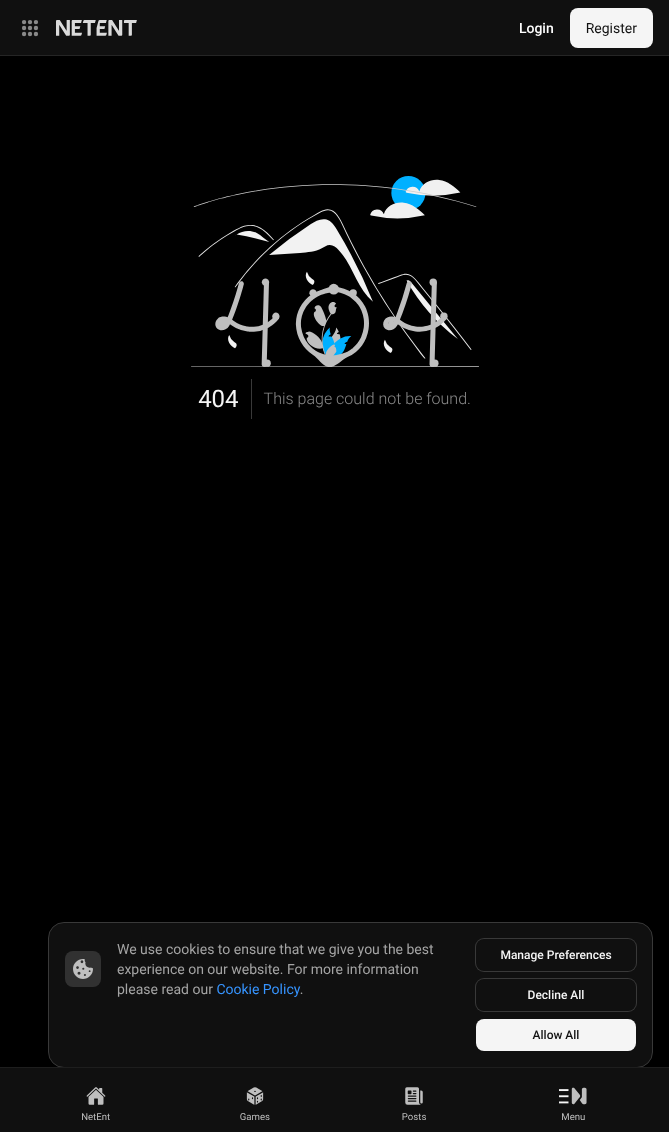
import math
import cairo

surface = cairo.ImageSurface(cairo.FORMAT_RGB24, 669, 1132)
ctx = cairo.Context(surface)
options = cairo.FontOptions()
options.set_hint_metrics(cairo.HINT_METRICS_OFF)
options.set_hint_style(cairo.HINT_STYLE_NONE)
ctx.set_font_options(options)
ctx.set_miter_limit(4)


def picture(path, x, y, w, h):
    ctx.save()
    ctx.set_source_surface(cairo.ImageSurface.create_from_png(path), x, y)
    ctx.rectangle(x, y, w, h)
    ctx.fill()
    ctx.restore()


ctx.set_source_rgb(1, 1, 1)
ctx.paint()
picture("img1.png", 0, 0, 669, 1132)
surface.write_to_png("page.png")
